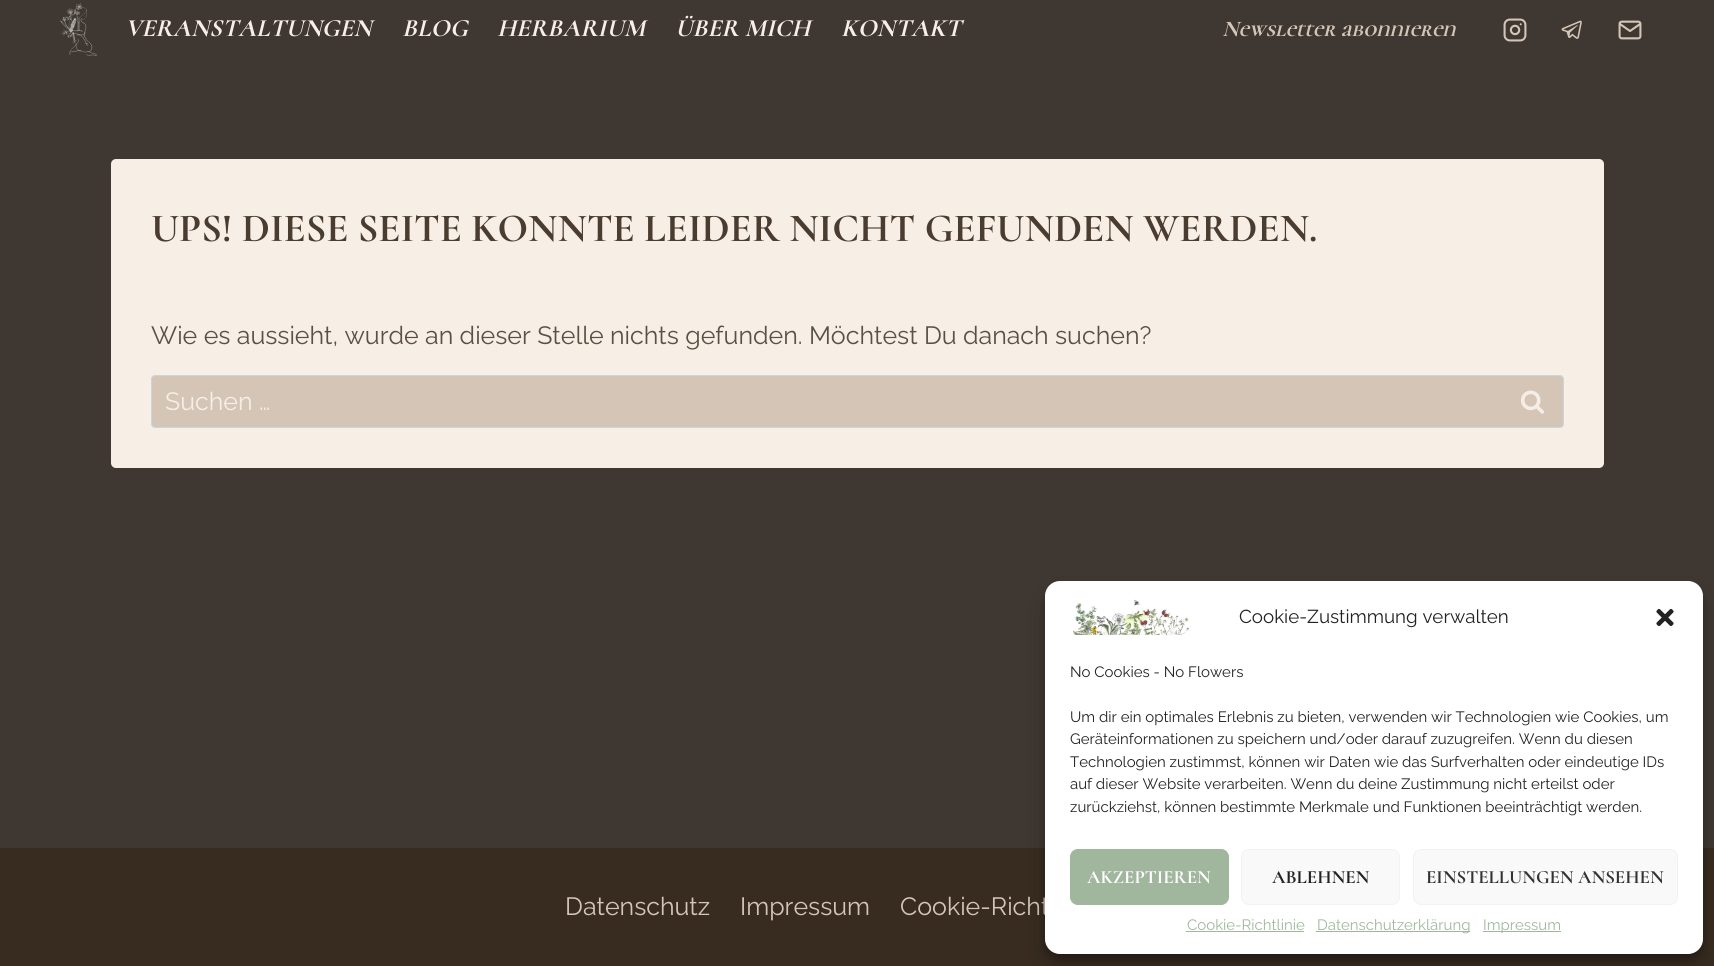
import math
import cairo

surface = cairo.ImageSurface(cairo.FORMAT_RGB24, 1714, 966)
ctx = cairo.Context(surface)
options = cairo.FontOptions()
options.set_hint_metrics(cairo.HINT_METRICS_OFF)
options.set_hint_style(cairo.HINT_STYLE_NONE)
ctx.set_font_options(options)
ctx.set_miter_limit(4)


def round_rect(x, y, w, h, r):
    ctx.new_sub_path()
    for i, (u, v) in enumerate([(x + w - r, y + h - r), (x + r, y + h - r), (x + r, y + r), (x + w - r, y + r)]):
        ctx.arc(u, v, r, i * math.pi / 2, (i + 1) * math.pi / 2)
    ctx.close_path()


def shadow(x, y, w, h, r, blur, alpha):
    ctx.push_group_with_content(cairo.CONTENT_ALPHA)
    ctx.set_operator(cairo.OPERATOR_SOURCE)
    for i in range(15, -16, -2):
        e = blur * i / 6
        if min(w, h) + 2 * e > 0:
            ctx.set_source_rgba(0, 0, 0, alpha * math.erfc((i - 1) / 8.5) / 2)
            round_rect(x - e, y - e, w + 2 * e, h + 2 * e, max(0, min(r + e + blur * .6, min(w, h) / 2 + e)))
            ctx.fill()
    ctx.mask(ctx.pop_group())


def picture(path, x, y, w, h):
    ctx.save()
    ctx.set_source_surface(cairo.ImageSurface.create_from_png(path), x, y)
    ctx.rectangle(x, y, w, h)
    ctx.fill()
    ctx.restore()


ctx.set_source_rgb(0.247, 0.22, 0.196)
ctx.paint()
picture("img1.png", 60, 3, 37, 53)
ctx.select_font_face("Cormorant Unicase", cairo.FONT_SLANT_ITALIC, cairo.FONT_WEIGHT_BOLD)
ctx.set_font_size(25)
ctx.set_source_rgb(0.965, 0.933, 0.902)
ctx.move_to(125, 36)
ctx.show_text("VERANSTALTUNGEN")
ctx.move_to(402, 36)
ctx.show_text("BLOG")
ctx.move_to(497, 36)
ctx.show_text("HERBARIUM")
ctx.move_to(675, 36)
ctx.show_text("ÜBER MICH")
ctx.move_to(841, 36)
ctx.show_text("KONTAKT")
ctx.set_font_size(22.5)
ctx.set_source_rgb(0.831, 0.773, 0.718)
ctx.move_to(1222, 36)
ctx.show_text("Newsletter abonnieren")
picture("img2.png", 1503, 18, 24, 24)
picture("img3.png", 1561, 20, 21, 19)
picture("img4.png", 1618, 20, 24, 20)
ctx.set_source_rgb(0.965, 0.933, 0.902)
round_rect(111, 159, 1493, 309, 5)
ctx.fill()
ctx.select_font_face("Cormorant Unicase", cairo.FONT_SLANT_NORMAL, cairo.FONT_WEIGHT_BOLD)
ctx.set_font_size(40)
ctx.set_source_rgb(0.294, 0.235, 0.188)
ctx.move_to(151, 241)
ctx.show_text("UPS! DIESE SEITE KONNTE LEIDER NICHT GEFUNDEN WERDEN.")
ctx.select_font_face("Raleway Thin")
ctx.set_font_size(25)
ctx.set_source_rgb(0.361, 0.314, 0.267)
ctx.move_to(151, 344)
ctx.show_text("Wie es aussieht, wurde an dieser Stelle nichts gefunden. Möchtest Du danach suchen?")
ctx.set_source_rgb(0.831, 0.773, 0.718)
round_rect(151.5, 375.5, 1412, 52, 3.5)
ctx.fill_preserve()
ctx.set_source_rgb(0.796, 0.835, 0.878)
ctx.set_line_width(1)
ctx.stroke()
ctx.set_source_rgb(0.965, 0.933, 0.902)
ctx.move_to(165, 410)
ctx.show_text("Suchen …")
picture("img5.png", 1521, 390, 23, 24)
ctx.set_source_rgb(0.22, 0.173, 0.125)
ctx.rectangle(0, 848, 1714, 118)
ctx.fill()
ctx.set_source_rgb(0.831, 0.773, 0.718)
ctx.move_to(565, 915)
ctx.show_text("Datenschutz")
ctx.move_to(740, 915)
ctx.show_text("Impressum")
ctx.move_to(900, 915)
ctx.show_text("Cookie-Richt")
ctx.set_source_rgb(0, 0, 0)
shadow(1045, 589, 658, 372, 15, 4, 0.23)
shadow(1045, 594, 658, 372, 15, 12.5, 0.19)
ctx.set_source_rgb(1, 1, 1)
round_rect(1045, 581, 658, 373, 15)
ctx.fill()
picture("img6.png", 1072, 599, 118, 36)
ctx.set_font_size(18.75)
ctx.set_source_rgb(0.133, 0.133, 0.133)
ctx.move_to(1239, 623)
ctx.show_text("Cookie-Zustimmung verwalten")
picture("img7.png", 1656, 608, 18, 18)
ctx.set_font_size(15)
ctx.move_to(1070, 677)
ctx.show_text("No Cookies - No Flowers")
ctx.move_to(1070, 722)
ctx.show_text("Um dir ein optimales Erlebnis zu bieten, verwenden wir Technologien wie Cookies, um")
ctx.move_to(1070, 744)
ctx.show_text("Geräteinformationen zu speichern und/oder darauf zuzugreifen. Wenn du diesen")
ctx.move_to(1070, 767)
ctx.show_text("Technologien zustimmst, können wir Daten wie das Surfverhalten oder eindeutige IDs")
ctx.move_to(1070, 789)
ctx.show_text("auf dieser Website verarbeiten. Wenn du deine Zustimmung nicht erteilst oder")
ctx.move_to(1070, 812)
ctx.show_text("zurückziehst, können bestimmte Merkmale und Funktionen beeinträchtigt werden.")
ctx.set_source_rgb(0.627, 0.718, 0.616)
round_rect(1070.5, 849.5, 158, 55, 7.5)
ctx.fill_preserve()
ctx.stroke()
ctx.select_font_face("Cormorant Unicase", cairo.FONT_SLANT_NORMAL, cairo.FONT_WEIGHT_BOLD)
ctx.set_font_size(18.75)
ctx.set_source_rgb(1, 1, 1)
ctx.move_to(1087, 883)
ctx.show_text("AKZEPTIEREN")
ctx.set_source_rgb(0.976, 0.976, 0.976)
round_rect(1241.5, 849.5, 158, 55, 7.5)
ctx.fill_preserve()
ctx.set_source_rgb(0.949, 0.949, 0.949)
ctx.stroke()
ctx.set_source_rgb(0.133, 0.133, 0.133)
ctx.move_to(1272, 883)
ctx.show_text("ABLEHNEN")
ctx.set_source_rgb(0.976, 0.976, 0.976)
round_rect(1413.5, 849.5, 264, 55, 7.5)
ctx.fill_preserve()
ctx.set_source_rgb(0.949, 0.949, 0.949)
ctx.stroke()
ctx.set_source_rgb(0.2, 0.2, 0.2)
ctx.move_to(1426, 883)
ctx.show_text("EINSTELLUNGEN ANSEHEN")
ctx.select_font_face("Raleway Thin")
ctx.set_font_size(15)
ctx.set_source_rgb(0.627, 0.718, 0.616)
ctx.move_to(1187, 930)
ctx.show_text("Cookie-Richtlinie")
ctx.rectangle(1186, 931, 118, 1)
ctx.fill()
ctx.rectangle(1316, 931, 154, 1)
ctx.fill()
ctx.move_to(1317, 930)
ctx.show_text("Datenschutzerklärung")
ctx.rectangle(1483, 931, 78, 1)
ctx.fill()
ctx.move_to(1483, 930)
ctx.show_text("Impressum")
surface.write_to_png("page.png")
